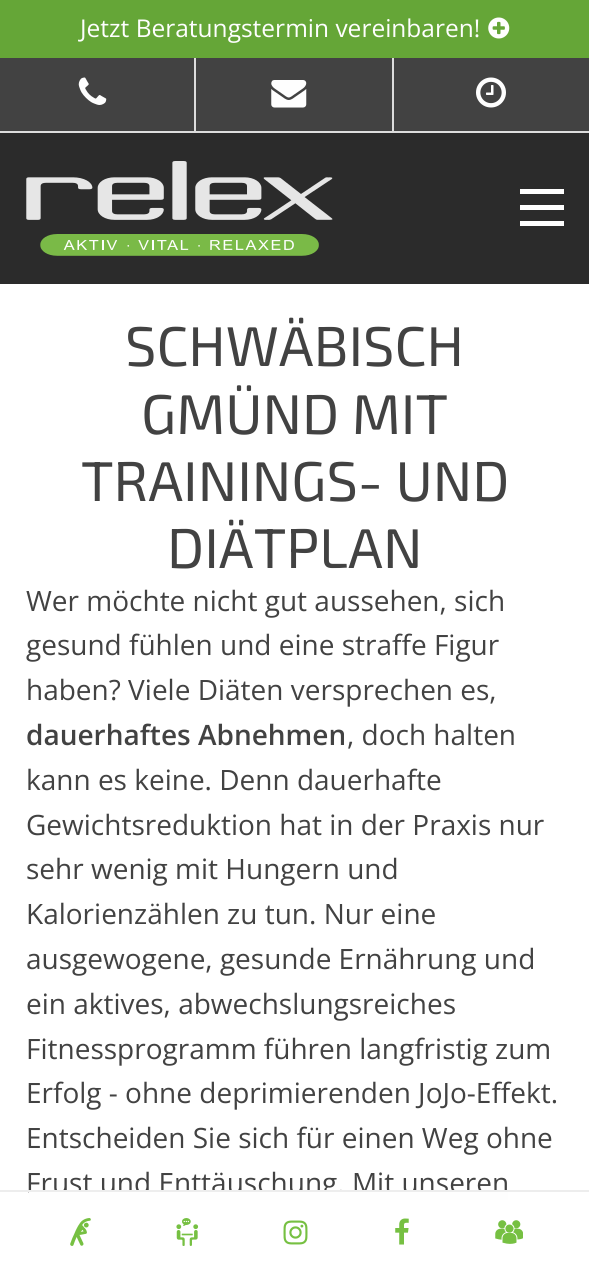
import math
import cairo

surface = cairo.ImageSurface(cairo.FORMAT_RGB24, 589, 1271)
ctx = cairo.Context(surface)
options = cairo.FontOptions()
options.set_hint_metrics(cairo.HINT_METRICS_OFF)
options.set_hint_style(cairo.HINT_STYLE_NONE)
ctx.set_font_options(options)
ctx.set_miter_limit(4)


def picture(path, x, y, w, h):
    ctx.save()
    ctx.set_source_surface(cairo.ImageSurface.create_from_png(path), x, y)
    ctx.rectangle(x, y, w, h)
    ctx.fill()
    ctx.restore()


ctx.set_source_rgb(1, 1, 1)
ctx.paint()
ctx.set_source_rgb(0.259, 0.259, 0.259)
ctx.rectangle(0, 58, 589, 73)
ctx.fill()
ctx.set_source_rgb(0.867, 0.867, 0.867)
ctx.rectangle(0, 131, 589, 2)
ctx.fill()
ctx.set_source_rgb(0.396, 0.651, 0.216)
ctx.rectangle(0, 0, 589, 58)
ctx.fill()
ctx.select_font_face("Open Sans")
ctx.set_font_size(24.5)
ctx.set_source_rgb(0.996, 0.996, 0.996)
ctx.move_to(80, 37)
ctx.show_text("Jetzt Beratungstermin vereinbaren!")
picture("img1.png", 488, 17, 22, 22)
ctx.set_source_rgb(0.867, 0.867, 0.867)
ctx.rectangle(194, 58, 2, 73)
ctx.fill()
picture("img2.png", 78, 77, 29, 28)
ctx.rectangle(392, 58, 2, 73)
ctx.fill()
picture("img3.png", 271, 80, 36, 28)
picture("img4.png", 476, 77, 30, 31)
ctx.set_source_rgb(0.169, 0.169, 0.169)
ctx.rectangle(0, 133, 589, 151)
ctx.fill()
picture("img5.png", 26, 161, 307, 95)
ctx.set_source_rgb(0.996, 0.996, 0.996)
ctx.rectangle(520, 205, 44, 5)
ctx.fill()
ctx.rectangle(520, 189, 44, 5)
ctx.fill()
ctx.rectangle(520, 221, 44, 5)
ctx.fill()
ctx.select_font_face("Exo 2")
ctx.set_font_size(56)
ctx.set_source_rgb(0.259, 0.259, 0.259)
ctx.move_to(125, 366)
ctx.show_text("SCHWÄBISCH")
ctx.move_to(141, 434)
ctx.show_text("GMÜND MIT")
ctx.move_to(81, 501)
ctx.show_text("TRAININGS- UND")
ctx.move_to(167, 568)
ctx.show_text("DIÄTPLAN")
ctx.select_font_face("Open Sans")
ctx.set_font_size(28)
ctx.move_to(26, 611)
ctx.show_text("Wer möchte nicht gut aussehen, sich")
ctx.move_to(26, 655)
ctx.show_text("gesund fühlen und eine straffe Figur")
ctx.move_to(26, 700)
ctx.show_text("haben? Viele Diäten versprechen es,")
ctx.select_font_face("Open Sans SemiBold")
ctx.move_to(26, 745)
ctx.show_text("dauerhaftes Abnehmen")
ctx.select_font_face("Open Sans")
ctx.move_to(347, 745)
ctx.show_text(", doch halten")
ctx.move_to(26, 790)
ctx.show_text("kann es keine. Denn dauerhafte")
ctx.move_to(26, 835)
ctx.show_text("Gewichtsreduktion hat in der Praxis nur")
ctx.move_to(26, 879)
ctx.show_text("sehr wenig mit Hungern und")
ctx.move_to(26, 924)
ctx.show_text("Kalorienzählen zu tun. Nur eine")
ctx.move_to(26, 969)
ctx.show_text("ausgewogene, gesunde Ernährung und")
ctx.move_to(26, 1014)
ctx.show_text("ein aktives, abwechslungsreiches")
ctx.move_to(26, 1059)
ctx.show_text("Fitnessprogramm führen langfristig zum")
ctx.move_to(26, 1103)
ctx.show_text("Erfolg - ohne deprimierenden JoJo-Effekt.")
ctx.move_to(26, 1148)
ctx.show_text("Entscheiden Sie sich für einen Weg ohne")
ctx.move_to(26, 1193)
ctx.show_text("Frust und Enttäuschung. Mit unseren")
ctx.set_source_rgb(0.996, 0.996, 0.996)
ctx.rectangle(29, 1192, 479, 8)
ctx.fill()
ctx.set_source_rgb(0.929, 0.929, 0.929)
ctx.rectangle(0, 1190, 589, 2)
ctx.fill()
picture("img6.png", 70, 1218, 21, 28)
picture("img7.png", 176, 1218, 23, 28)
picture("img8.png", 283, 1220, 25, 25)
picture("img9.png", 395, 1218, 14, 27)
picture("img10.png", 495, 1220, 28, 24)
surface.write_to_png("page.png")
